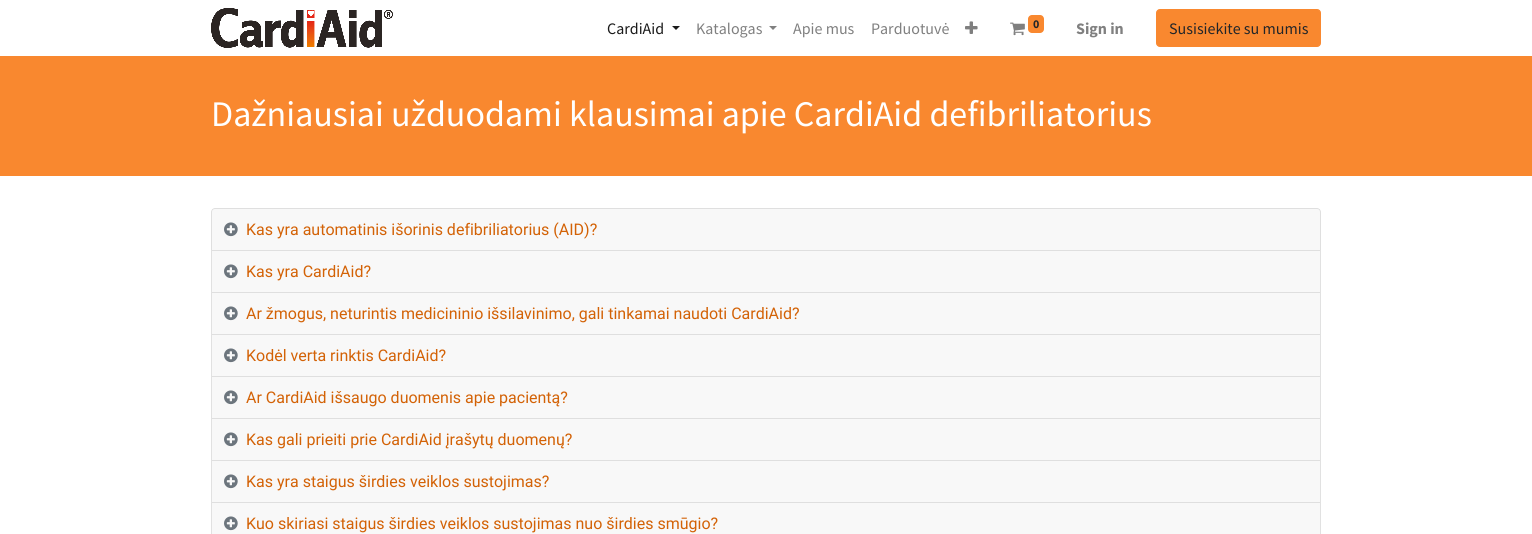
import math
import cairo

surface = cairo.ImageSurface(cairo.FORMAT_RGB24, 1532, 534)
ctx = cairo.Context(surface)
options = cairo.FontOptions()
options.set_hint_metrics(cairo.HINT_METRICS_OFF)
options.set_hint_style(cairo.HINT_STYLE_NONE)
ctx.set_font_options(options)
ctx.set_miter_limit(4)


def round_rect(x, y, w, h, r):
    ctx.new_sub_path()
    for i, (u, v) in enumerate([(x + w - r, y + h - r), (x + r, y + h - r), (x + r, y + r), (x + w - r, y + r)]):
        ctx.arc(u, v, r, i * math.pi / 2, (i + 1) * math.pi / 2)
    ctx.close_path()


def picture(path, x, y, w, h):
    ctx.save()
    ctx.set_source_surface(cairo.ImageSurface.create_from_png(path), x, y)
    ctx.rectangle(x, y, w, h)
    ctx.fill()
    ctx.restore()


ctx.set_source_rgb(1, 1, 1)
ctx.paint()
picture("img1.png", 211, 8, 182, 40)
ctx.select_font_face("Source Sans Pro")
ctx.set_font_size(16)
ctx.set_source_rgb(0.102, 0.102, 0.102)
ctx.move_to(607, 34)
ctx.show_text("CardiAid")
ctx.new_path()
ctx.move_to(672, 26)
ctx.line_to(680, 26)
ctx.line_to(676, 30)
ctx.close_path()
ctx.fill()
ctx.set_source_rgb(0.502, 0.502, 0.502)
ctx.move_to(696, 34)
ctx.show_text("Katalogas")
ctx.new_path()
ctx.move_to(769, 26)
ctx.line_to(777, 26)
ctx.line_to(773, 30)
ctx.close_path()
ctx.fill()
ctx.move_to(793, 34)
ctx.show_text("Apie mus")
ctx.move_to(871, 34)
ctx.show_text("Parduotuvė")
picture("img2.png", 965, 21, 13, 13)
picture("img3.png", 1010, 22, 15, 14)
ctx.set_source_rgb(0.973, 0.533, 0.184)
round_rect(1028, 15, 16, 18, 4)
ctx.fill()
ctx.select_font_face("Source Sans Pro", cairo.FONT_SLANT_NORMAL, cairo.FONT_WEIGHT_BOLD)
ctx.set_font_size(12)
ctx.set_source_rgb(0.129, 0.145, 0.161)
ctx.move_to(1033, 28)
ctx.show_text("0")
ctx.set_font_size(16)
ctx.set_source_rgb(0.502, 0.502, 0.502)
ctx.move_to(1076, 34)
ctx.show_text("Sign in")
ctx.set_source_rgb(0.973, 0.533, 0.184)
round_rect(1156.5, 9.5, 164, 37, 3.5)
ctx.fill_preserve()
ctx.set_line_width(1)
ctx.stroke()
ctx.select_font_face("Source Sans Pro")
ctx.set_source_rgb(0.129, 0.145, 0.161)
ctx.move_to(1169, 34)
ctx.show_text("Susisiekite su mumis")
ctx.set_source_rgb(0.973, 0.533, 0.184)
ctx.rectangle(0, 56, 1532, 120)
ctx.fill()
ctx.set_font_size(36)
ctx.set_source_rgb(1, 1, 1)
ctx.move_to(211, 126)
ctx.show_text("Dažniausiai užduodami klausimai apie CardiAid defibriliatorius")
ctx.set_source_rgb(0.875, 0.875, 0.875)
ctx.set_fill_rule(cairo.FILL_RULE_EVEN_ODD)
ctx.new_path()
ctx.move_to(215, 208)
ctx.line_to(1317, 208)
ctx.curve_to(1319, 208, 1321, 210, 1321, 212)
ctx.line_to(1321, 250)
ctx.line_to(211, 250)
ctx.line_to(211, 212)
ctx.curve_to(211, 210, 213, 208, 215, 208)
ctx.close_path()
ctx.move_to(215, 209)
ctx.line_to(1317, 209)
ctx.curve_to(1319, 209, 1320, 210, 1320, 212)
ctx.line_to(1320, 250)
ctx.line_to(212, 250)
ctx.line_to(212, 212)
ctx.curve_to(212, 210, 213, 209, 215, 209)
ctx.close_path()
ctx.fill()
ctx.set_source_rgba(0, 0, 0, 0.03)
ctx.rectangle(212, 209, 1108, 41)
ctx.fill()
picture("img4.png", 224, 222, 14, 15)
ctx.select_font_face("Roboto")
ctx.set_font_size(16)
ctx.set_source_rgb(0.827, 0.384, 0.027)
ctx.move_to(246, 235)
ctx.show_text("Kas yra automatinis išorinis defibriliatorius (AID)?")
ctx.set_source_rgb(0.875, 0.875, 0.875)
ctx.set_fill_rule(cairo.FILL_RULE_WINDING)
ctx.new_path()
ctx.move_to(211, 250)
ctx.line_to(1321, 250)
ctx.line_to(1320, 251)
ctx.line_to(212, 251)
ctx.close_path()
ctx.fill()
ctx.set_source_rgba(0, 0, 0, 0.12)
ctx.new_path()
ctx.move_to(1321, 250)
ctx.line_to(1321, 292)
ctx.line_to(1320, 292)
ctx.line_to(1320, 251)
ctx.close_path()
ctx.fill()
ctx.new_path()
ctx.move_to(211, 292)
ctx.line_to(211, 250)
ctx.line_to(212, 251)
ctx.line_to(212, 292)
ctx.close_path()
ctx.fill()
ctx.set_source_rgb(0.969, 0.969, 0.969)
ctx.rectangle(212, 251, 1108, 41)
ctx.fill()
picture("img5.png", 224, 264, 14, 15)
ctx.set_source_rgb(0.827, 0.384, 0.027)
ctx.move_to(246, 277)
ctx.show_text("Kas yra CardiAid?")
ctx.set_source_rgb(0.875, 0.875, 0.875)
ctx.new_path()
ctx.move_to(211, 292)
ctx.line_to(1321, 292)
ctx.line_to(1320, 293)
ctx.line_to(212, 293)
ctx.close_path()
ctx.fill()
ctx.set_source_rgba(0, 0, 0, 0.12)
ctx.new_path()
ctx.move_to(1321, 292)
ctx.line_to(1321, 334)
ctx.line_to(1320, 334)
ctx.line_to(1320, 293)
ctx.close_path()
ctx.fill()
ctx.new_path()
ctx.move_to(211, 334)
ctx.line_to(211, 292)
ctx.line_to(212, 293)
ctx.line_to(212, 334)
ctx.close_path()
ctx.fill()
ctx.set_source_rgb(0.969, 0.969, 0.969)
ctx.rectangle(212, 293, 1108, 41)
ctx.fill()
picture("img5.png", 224, 306, 14, 15)
ctx.set_source_rgb(0.827, 0.384, 0.027)
ctx.move_to(246, 319)
ctx.show_text("Ar žmogus, neturintis medicininio išsilavinimo, gali tinkamai naudoti CardiAid?")
ctx.set_source_rgb(0.875, 0.875, 0.875)
ctx.new_path()
ctx.move_to(211, 334)
ctx.line_to(1321, 334)
ctx.line_to(1320, 335)
ctx.line_to(212, 335)
ctx.close_path()
ctx.fill()
ctx.set_source_rgba(0, 0, 0, 0.12)
ctx.new_path()
ctx.move_to(1321, 334)
ctx.line_to(1321, 376)
ctx.line_to(1320, 376)
ctx.line_to(1320, 335)
ctx.close_path()
ctx.fill()
ctx.new_path()
ctx.move_to(211, 376)
ctx.line_to(211, 334)
ctx.line_to(212, 335)
ctx.line_to(212, 376)
ctx.close_path()
ctx.fill()
ctx.set_source_rgb(0.969, 0.969, 0.969)
ctx.rectangle(212, 335, 1108, 41)
ctx.fill()
picture("img5.png", 224, 348, 14, 15)
ctx.set_source_rgb(0.827, 0.384, 0.027)
ctx.move_to(246, 361)
ctx.show_text("Kodėl verta rinktis CardiAid?")
ctx.set_source_rgb(0.875, 0.875, 0.875)
ctx.new_path()
ctx.move_to(211, 376)
ctx.line_to(1321, 376)
ctx.line_to(1320, 377)
ctx.line_to(212, 377)
ctx.close_path()
ctx.fill()
ctx.set_source_rgba(0, 0, 0, 0.12)
ctx.new_path()
ctx.move_to(1321, 376)
ctx.line_to(1321, 418)
ctx.line_to(1320, 418)
ctx.line_to(1320, 377)
ctx.close_path()
ctx.fill()
ctx.new_path()
ctx.move_to(211, 418)
ctx.line_to(211, 376)
ctx.line_to(212, 377)
ctx.line_to(212, 418)
ctx.close_path()
ctx.fill()
ctx.set_source_rgb(0.969, 0.969, 0.969)
ctx.rectangle(212, 377, 1108, 41)
ctx.fill()
picture("img5.png", 224, 390, 14, 15)
ctx.set_source_rgb(0.827, 0.384, 0.027)
ctx.move_to(246, 403)
ctx.show_text("Ar CardiAid išsaugo duomenis apie pacientą?")
ctx.set_source_rgb(0.875, 0.875, 0.875)
ctx.new_path()
ctx.move_to(211, 418)
ctx.line_to(1321, 418)
ctx.line_to(1320, 419)
ctx.line_to(212, 419)
ctx.close_path()
ctx.fill()
ctx.set_source_rgba(0, 0, 0, 0.12)
ctx.new_path()
ctx.move_to(1321, 418)
ctx.line_to(1321, 460)
ctx.line_to(1320, 460)
ctx.line_to(1320, 419)
ctx.close_path()
ctx.fill()
ctx.new_path()
ctx.move_to(211, 460)
ctx.line_to(211, 418)
ctx.line_to(212, 419)
ctx.line_to(212, 460)
ctx.close_path()
ctx.fill()
ctx.set_source_rgb(0.969, 0.969, 0.969)
ctx.rectangle(212, 419, 1108, 41)
ctx.fill()
picture("img5.png", 224, 432, 14, 15)
ctx.set_source_rgb(0.827, 0.384, 0.027)
ctx.move_to(246, 445)
ctx.show_text("Kas gali prieiti prie CardiAid įrašytų duomenų?")
ctx.set_source_rgb(0.875, 0.875, 0.875)
ctx.new_path()
ctx.move_to(211, 460)
ctx.line_to(1321, 460)
ctx.line_to(1320, 461)
ctx.line_to(212, 461)
ctx.close_path()
ctx.fill()
ctx.set_source_rgba(0, 0, 0, 0.12)
ctx.new_path()
ctx.move_to(1321, 460)
ctx.line_to(1321, 502)
ctx.line_to(1320, 502)
ctx.line_to(1320, 461)
ctx.close_path()
ctx.fill()
ctx.new_path()
ctx.move_to(211, 502)
ctx.line_to(211, 460)
ctx.line_to(212, 461)
ctx.line_to(212, 502)
ctx.close_path()
ctx.fill()
ctx.set_source_rgb(0.969, 0.969, 0.969)
ctx.rectangle(212, 461, 1108, 41)
ctx.fill()
picture("img5.png", 224, 474, 14, 15)
ctx.set_source_rgb(0.827, 0.384, 0.027)
ctx.move_to(246, 487)
ctx.show_text("Kas yra staigus širdies veiklos sustojimas?")
ctx.set_source_rgb(0.875, 0.875, 0.875)
ctx.new_path()
ctx.move_to(211, 502)
ctx.line_to(1321, 502)
ctx.line_to(1320, 503)
ctx.line_to(212, 503)
ctx.close_path()
ctx.fill()
ctx.set_source_rgba(0, 0, 0, 0.12)
ctx.new_path()
ctx.move_to(1321, 502)
ctx.line_to(1321, 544)
ctx.line_to(1320, 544)
ctx.line_to(1320, 503)
ctx.close_path()
ctx.fill()
ctx.new_path()
ctx.move_to(211, 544)
ctx.line_to(211, 502)
ctx.line_to(212, 503)
ctx.line_to(212, 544)
ctx.close_path()
ctx.fill()
ctx.set_source_rgb(0.969, 0.969, 0.969)
ctx.rectangle(212, 503, 1108, 31)
ctx.fill()
picture("img5.png", 224, 516, 14, 15)
ctx.set_source_rgb(0.827, 0.384, 0.027)
ctx.move_to(246, 529)
ctx.show_text("Kuo skiriasi staigus širdies veiklos sustojimas nuo širdies smūgio?")
surface.write_to_png("page.png")
